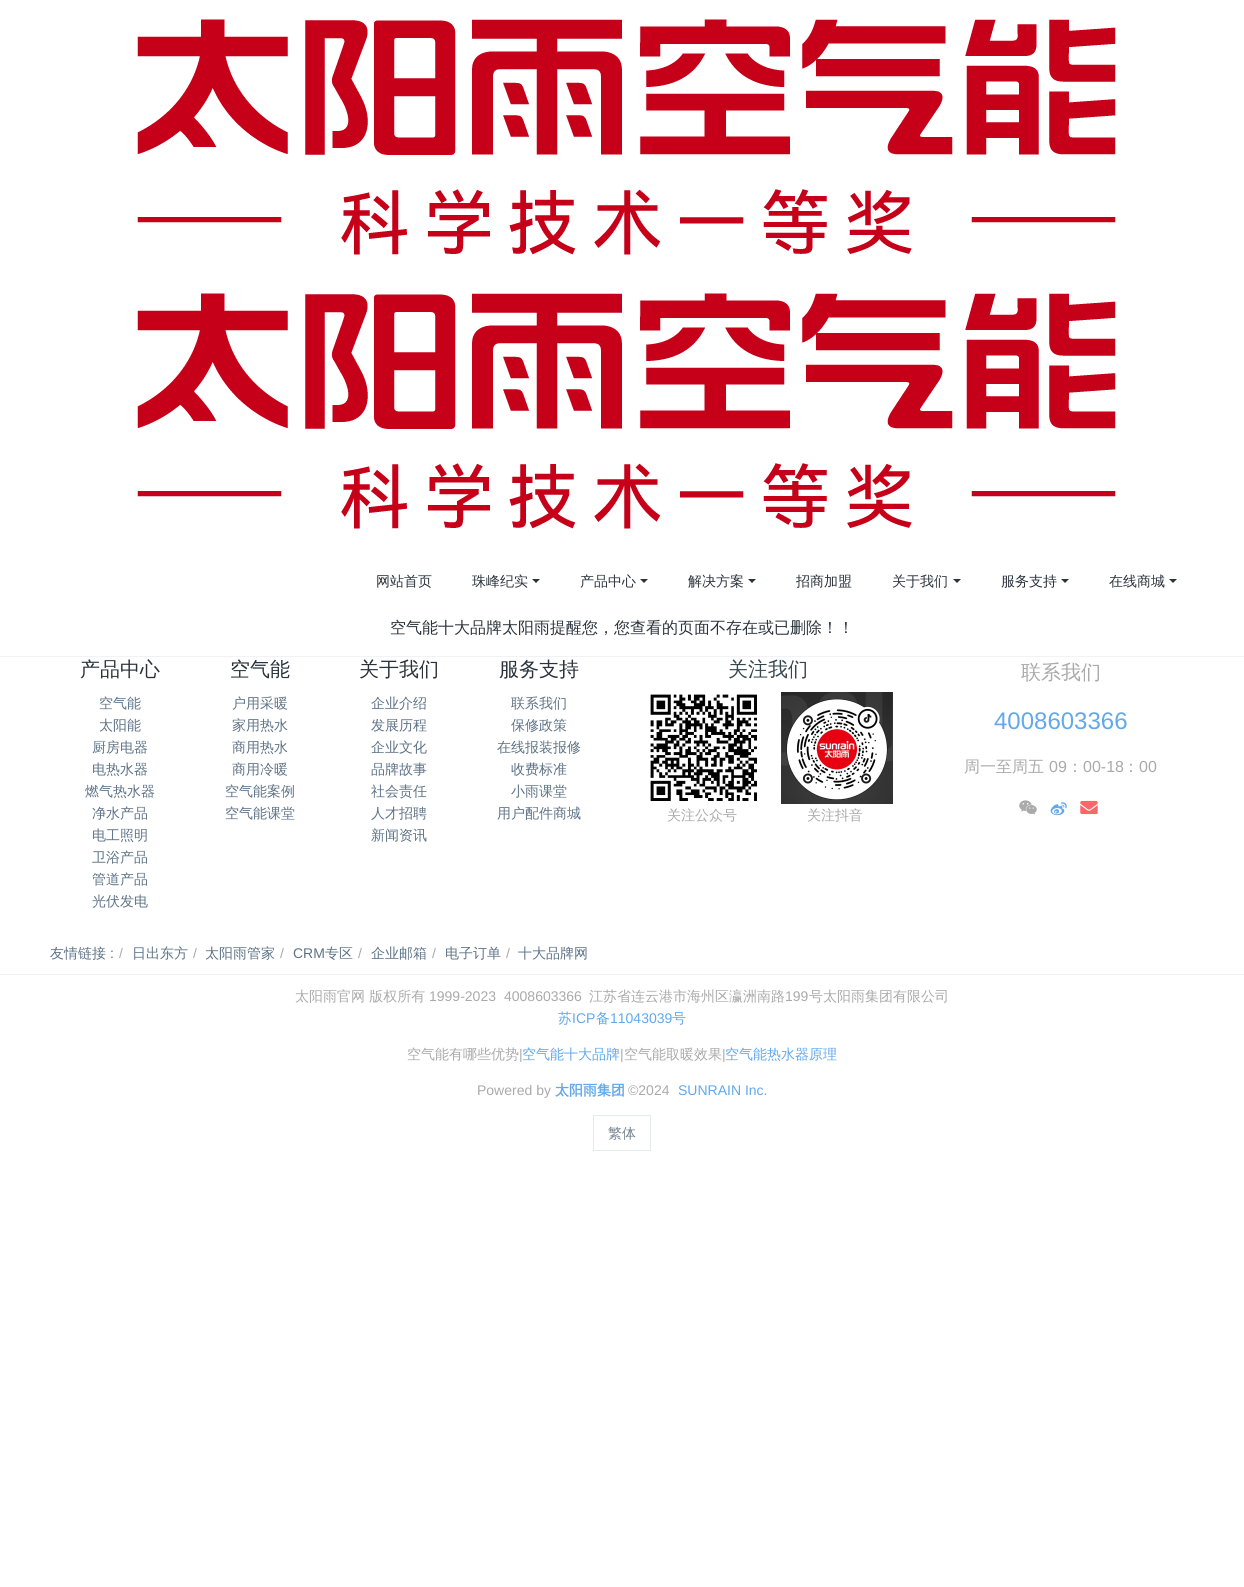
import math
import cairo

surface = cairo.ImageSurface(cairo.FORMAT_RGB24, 1244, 1587)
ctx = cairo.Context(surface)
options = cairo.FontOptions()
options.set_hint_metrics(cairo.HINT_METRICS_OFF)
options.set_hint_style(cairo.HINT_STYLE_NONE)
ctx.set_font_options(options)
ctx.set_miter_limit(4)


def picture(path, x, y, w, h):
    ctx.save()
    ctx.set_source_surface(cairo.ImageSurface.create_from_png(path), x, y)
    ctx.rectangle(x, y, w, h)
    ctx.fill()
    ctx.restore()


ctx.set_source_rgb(1, 1, 1)
ctx.paint()
picture("img1.png", 137, 19, 979, 236)
picture("img1.png", 137, 293, 979, 236)
ctx.select_font_face("WenQuanYi Zen Hei Medium")
ctx.set_font_size(14)
ctx.set_source_rgb(0.165, 0.2, 0.235)
ctx.move_to(376, 586)
ctx.show_text("网站首页")
ctx.move_to(472, 586)
ctx.show_text("珠峰纪实")
ctx.new_path()
ctx.move_to(532, 579)
ctx.line_to(540, 579)
ctx.line_to(536, 583)
ctx.close_path()
ctx.fill()
ctx.move_to(580, 586)
ctx.show_text("产品中心")
ctx.new_path()
ctx.move_to(640, 579)
ctx.line_to(648, 579)
ctx.line_to(644, 583)
ctx.close_path()
ctx.fill()
ctx.move_to(688, 586)
ctx.show_text("解决方案")
ctx.new_path()
ctx.move_to(748, 579)
ctx.line_to(756, 579)
ctx.line_to(752, 583)
ctx.close_path()
ctx.fill()
ctx.move_to(796, 586)
ctx.show_text("招商加盟")
ctx.move_to(892, 586)
ctx.show_text("关于我们")
ctx.new_path()
ctx.move_to(953, 579)
ctx.line_to(961, 579)
ctx.line_to(957, 583)
ctx.close_path()
ctx.fill()
ctx.move_to(1001, 586)
ctx.show_text("服务支持")
ctx.new_path()
ctx.move_to(1061, 579)
ctx.line_to(1069, 579)
ctx.line_to(1065, 583)
ctx.close_path()
ctx.fill()
ctx.move_to(1109, 586)
ctx.show_text("在线商城")
ctx.new_path()
ctx.move_to(1169, 579)
ctx.line_to(1177, 579)
ctx.line_to(1173, 583)
ctx.close_path()
ctx.fill()
ctx.set_font_size(16)
ctx.move_to(390, 633)
ctx.show_text("空气能十大品牌太阳雨提醒您，您查看的页面不存在或已删除！！")
ctx.set_source_rgb(0.941, 0.949, 0.961)
ctx.rectangle(0, 656, 1244, 1)
ctx.fill()
ctx.set_font_size(20)
ctx.set_source_rgb(0.165, 0.2, 0.235)
ctx.move_to(80, 676)
ctx.show_text("产品中心")
ctx.set_font_size(14)
ctx.set_source_rgb(0.369, 0.451, 0.529)
ctx.move_to(99, 708)
ctx.show_text("空气能")
ctx.move_to(99, 730)
ctx.show_text("太阳能")
ctx.move_to(92, 752)
ctx.show_text("厨房电器")
ctx.move_to(92, 774)
ctx.show_text("电热水器")
ctx.move_to(85, 796)
ctx.show_text("燃气热水器")
ctx.move_to(92, 818)
ctx.show_text("净水产品")
ctx.move_to(92, 840)
ctx.show_text("电工照明")
ctx.move_to(92, 862)
ctx.show_text("卫浴产品")
ctx.move_to(92, 884)
ctx.show_text("管道产品")
ctx.move_to(92, 906)
ctx.show_text("光伏发电")
ctx.set_font_size(20)
ctx.set_source_rgb(0.165, 0.2, 0.235)
ctx.move_to(230, 676)
ctx.show_text("空气能")
ctx.set_font_size(14)
ctx.set_source_rgb(0.369, 0.451, 0.529)
ctx.move_to(232, 708)
ctx.show_text("户用采暖")
ctx.move_to(232, 730)
ctx.show_text("家用热水")
ctx.move_to(232, 752)
ctx.show_text("商用热水")
ctx.move_to(232, 774)
ctx.show_text("商用冷暖")
ctx.move_to(225, 796)
ctx.show_text("空气能案例")
ctx.move_to(225, 818)
ctx.show_text("空气能课堂")
ctx.set_font_size(20)
ctx.set_source_rgb(0.165, 0.2, 0.235)
ctx.move_to(359, 676)
ctx.show_text("关于我们")
ctx.set_font_size(14)
ctx.set_source_rgb(0.369, 0.451, 0.529)
ctx.move_to(371, 708)
ctx.show_text("企业介绍")
ctx.move_to(371, 730)
ctx.show_text("发展历程")
ctx.move_to(371, 752)
ctx.show_text("企业文化")
ctx.move_to(371, 774)
ctx.show_text("品牌故事")
ctx.move_to(371, 796)
ctx.show_text("社会责任")
ctx.move_to(371, 818)
ctx.show_text("人才招聘")
ctx.move_to(371, 840)
ctx.show_text("新闻资讯")
ctx.set_font_size(20)
ctx.set_source_rgb(0.165, 0.2, 0.235)
ctx.move_to(499, 676)
ctx.show_text("服务支持")
ctx.set_font_size(14)
ctx.set_source_rgb(0.369, 0.451, 0.529)
ctx.move_to(511, 708)
ctx.show_text("联系我们")
ctx.move_to(511, 730)
ctx.show_text("保修政策")
ctx.move_to(497, 752)
ctx.show_text("在线报装报修")
ctx.move_to(511, 774)
ctx.show_text("收费标准")
ctx.move_to(511, 796)
ctx.show_text("小雨课堂")
ctx.move_to(497, 818)
ctx.show_text("用户配件商城")
ctx.set_font_size(20)
ctx.set_source_rgb(0.216, 0.278, 0.31)
ctx.move_to(728, 676)
ctx.show_text("关注我们")
picture("img2.png", 650, 694, 107, 107)
ctx.set_font_size(14)
ctx.set_source_rgb(0.667, 0.667, 0.667)
ctx.move_to(667, 820)
ctx.show_text("关注公众号")
picture("img3.png", 781, 692, 112, 112)
ctx.move_to(807, 820)
ctx.show_text("关注抖音")
ctx.set_font_size(20)
ctx.move_to(1021, 679)
ctx.show_text("联系我们")
ctx.select_font_face("Liberation Sans")
ctx.set_font_size(24)
ctx.set_source_rgb(0.384, 0.659, 0.918)
ctx.move_to(994, 729)
ctx.show_text("4008603366")
ctx.select_font_face("WenQuanYi Zen Hei Medium")
ctx.set_font_size(16)
ctx.set_source_rgb(0.667, 0.667, 0.667)
ctx.move_to(964, 772)
ctx.show_text("周一至周五")
ctx.select_font_face("Liberation Sans")
ctx.move_to(1049, 772)
ctx.show_text("09")
ctx.select_font_face("WenQuanYi Zen Hei Medium")
ctx.move_to(1067, 772)
ctx.show_text("：")
ctx.select_font_face("Liberation Sans")
ctx.move_to(1083, 772)
ctx.show_text("00-18")
ctx.select_font_face("WenQuanYi Zen Hei Medium")
ctx.move_to(1123, 772)
ctx.show_text("：")
ctx.select_font_face("Liberation Sans")
ctx.move_to(1139, 772)
ctx.show_text("00")
picture("img4.png", 1019, 800, 18, 15)
picture("img5.png", 1050, 802, 17, 14)
picture("img6.png", 1080, 800, 18, 15)
ctx.select_font_face("WenQuanYi Zen Hei Medium")
ctx.set_font_size(14)
ctx.set_source_rgb(0.369, 0.451, 0.529)
ctx.move_to(50, 958)
ctx.show_text("友情链接")
ctx.select_font_face("Liberation Sans")
ctx.move_to(110, 958)
ctx.show_text(":")
ctx.set_source_rgb(0.667, 0.667, 0.667)
ctx.move_to(119, 958)
ctx.show_text("/")
ctx.select_font_face("WenQuanYi Zen Hei Medium")
ctx.set_source_rgb(0.369, 0.451, 0.529)
ctx.move_to(132, 958)
ctx.show_text("日出东方")
ctx.select_font_face("Liberation Sans")
ctx.set_source_rgb(0.667, 0.667, 0.667)
ctx.move_to(193, 958)
ctx.show_text("/")
ctx.select_font_face("WenQuanYi Zen Hei Medium")
ctx.set_source_rgb(0.369, 0.451, 0.529)
ctx.move_to(205, 958)
ctx.show_text("太阳雨管家")
ctx.select_font_face("Liberation Sans")
ctx.set_source_rgb(0.667, 0.667, 0.667)
ctx.move_to(280, 958)
ctx.show_text("/")
ctx.set_source_rgb(0.369, 0.451, 0.529)
ctx.move_to(293, 958)
ctx.show_text("CRM")
ctx.select_font_face("WenQuanYi Zen Hei Medium")
ctx.move_to(325, 958)
ctx.show_text("专区")
ctx.select_font_face("Liberation Sans")
ctx.set_source_rgb(0.667, 0.667, 0.667)
ctx.move_to(358, 958)
ctx.show_text("/")
ctx.select_font_face("WenQuanYi Zen Hei Medium")
ctx.set_source_rgb(0.369, 0.451, 0.529)
ctx.move_to(371, 958)
ctx.show_text("企业邮箱")
ctx.select_font_face("Liberation Sans")
ctx.set_source_rgb(0.667, 0.667, 0.667)
ctx.move_to(432, 958)
ctx.show_text("/")
ctx.select_font_face("WenQuanYi Zen Hei Medium")
ctx.set_source_rgb(0.369, 0.451, 0.529)
ctx.move_to(445, 958)
ctx.show_text("电子订单")
ctx.select_font_face("Liberation Sans")
ctx.set_source_rgb(0.667, 0.667, 0.667)
ctx.move_to(506, 958)
ctx.show_text("/")
ctx.select_font_face("WenQuanYi Zen Hei Medium")
ctx.set_source_rgb(0.369, 0.451, 0.529)
ctx.move_to(518, 958)
ctx.show_text("十大品牌网")
ctx.set_source_rgb(0.941, 0.949, 0.961)
ctx.rectangle(0, 974, 1244, 1)
ctx.fill()
ctx.set_source_rgb(0.667, 0.667, 0.667)
ctx.move_to(295, 1001)
ctx.show_text("太阳雨官网 版权所有")
ctx.select_font_face("Liberation Sans")
ctx.move_to(429, 1001)
ctx.show_text("1999-2023")
ctx.move_to(504, 1001)
ctx.show_text("4008603366")
ctx.select_font_face("WenQuanYi Zen Hei Medium")
ctx.move_to(589, 1001)
ctx.show_text("江苏省连云港市海州区瀛洲南路")
ctx.select_font_face("Liberation Sans")
ctx.move_to(785, 1001)
ctx.show_text("199")
ctx.select_font_face("WenQuanYi Zen Hei Medium")
ctx.move_to(809, 1001)
ctx.show_text("号太阳雨集团有限公司")
ctx.set_source_rgb(0.384, 0.659, 0.918)
ctx.move_to(558, 1023)
ctx.show_text("苏")
ctx.select_font_face("Liberation Sans")
ctx.move_to(572, 1023)
ctx.show_text("ICP")
ctx.select_font_face("WenQuanYi Zen Hei Medium")
ctx.move_to(596, 1023)
ctx.show_text("备")
ctx.select_font_face("Liberation Sans")
ctx.move_to(610, 1023)
ctx.show_text("11043039")
ctx.select_font_face("WenQuanYi Zen Hei Medium")
ctx.move_to(672, 1023)
ctx.show_text("号")
ctx.set_source_rgb(0.667, 0.667, 0.667)
ctx.move_to(407, 1059)
ctx.show_text("空气能有哪些优势")
ctx.select_font_face("Liberation Sans")
ctx.move_to(519, 1059)
ctx.show_text("|")
ctx.select_font_face("WenQuanYi Zen Hei Medium")
ctx.set_source_rgb(0.384, 0.659, 0.918)
ctx.move_to(522, 1059)
ctx.show_text("空气能十大品牌")
ctx.select_font_face("Liberation Sans")
ctx.set_source_rgb(0.667, 0.667, 0.667)
ctx.move_to(620, 1059)
ctx.show_text("|")
ctx.select_font_face("WenQuanYi Zen Hei Medium")
ctx.move_to(624, 1059)
ctx.show_text("空气能取暖效果")
ctx.select_font_face("Liberation Sans")
ctx.move_to(722, 1059)
ctx.show_text("|")
ctx.select_font_face("WenQuanYi Zen Hei Medium")
ctx.set_source_rgb(0.384, 0.659, 0.918)
ctx.move_to(725, 1059)
ctx.show_text("空气能热水器原理")
ctx.select_font_face("Liberation Sans")
ctx.set_source_rgb(0.667, 0.667, 0.667)
ctx.move_to(477, 1095)
ctx.show_text("Powered by")
ctx.select_font_face("WenQuanYi Zen Hei", cairo.FONT_SLANT_NORMAL, cairo.FONT_WEIGHT_BOLD)
ctx.set_source_rgb(0.384, 0.659, 0.918)
ctx.move_to(555, 1095)
ctx.show_text("太阳雨集团")
ctx.select_font_face("Liberation Sans")
ctx.set_source_rgb(0.667, 0.667, 0.667)
ctx.move_to(628, 1095)
ctx.show_text("©2024")
ctx.set_source_rgb(0.384, 0.659, 0.918)
ctx.move_to(678, 1095)
ctx.show_text("SUNRAIN Inc.")
ctx.rectangle(593.5, 1115.5, 57, 35)
ctx.set_source_rgb(0.894, 0.918, 0.925)
ctx.set_line_width(1)
ctx.stroke()
ctx.select_font_face("WenQuanYi Zen Hei Medium")
ctx.set_source_rgb(0.463, 0.514, 0.561)
ctx.move_to(608, 1138)
ctx.show_text("繁体")
surface.write_to_png("page.png")
